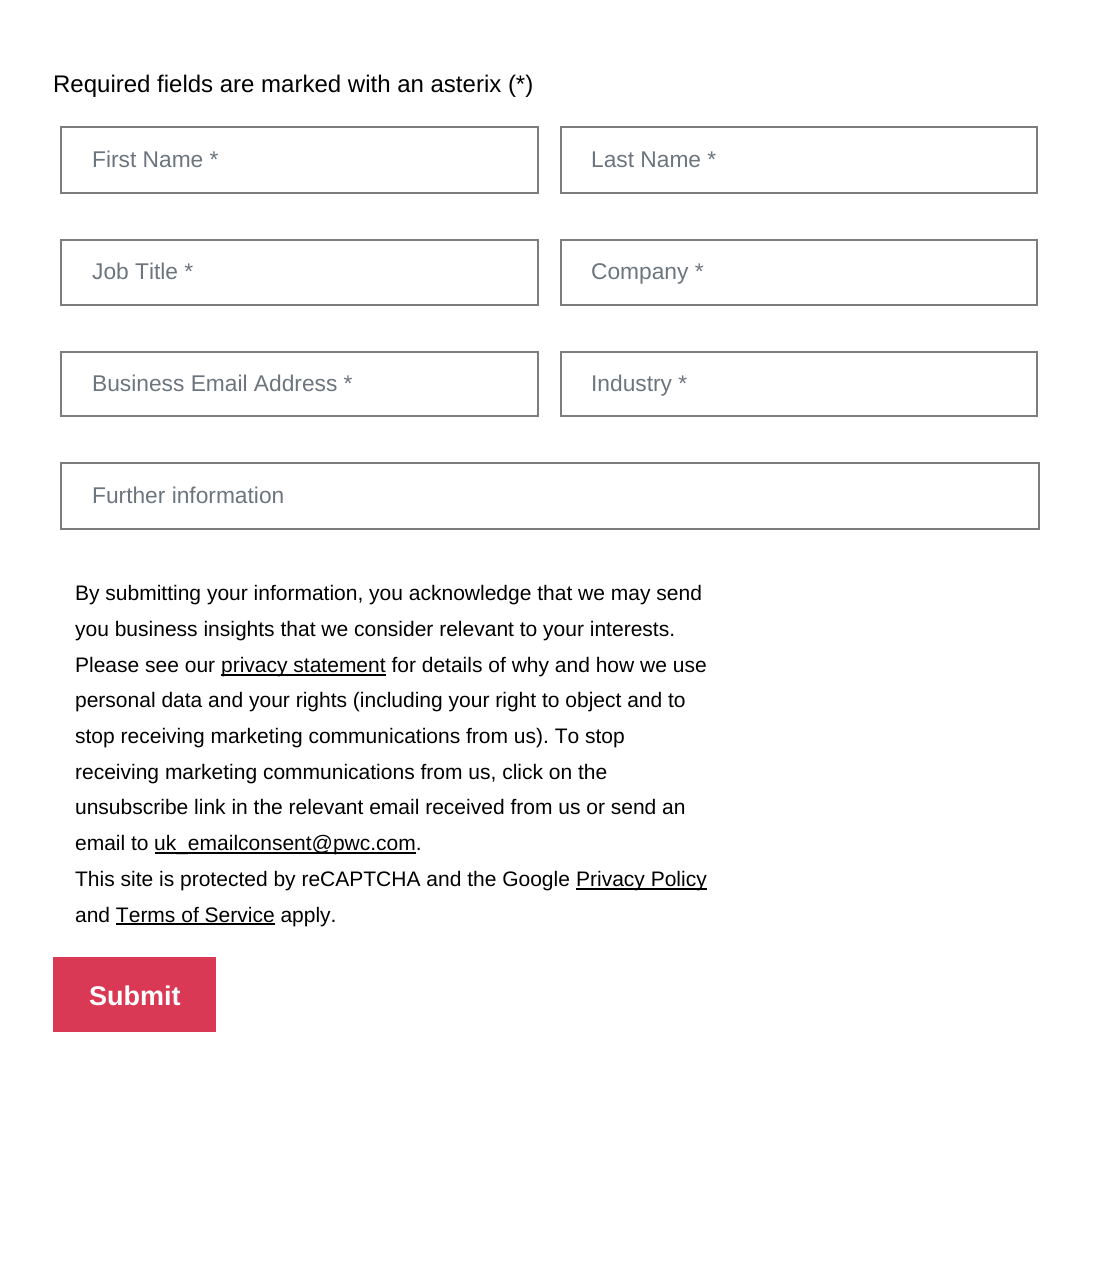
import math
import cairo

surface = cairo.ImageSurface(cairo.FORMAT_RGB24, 1111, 1267)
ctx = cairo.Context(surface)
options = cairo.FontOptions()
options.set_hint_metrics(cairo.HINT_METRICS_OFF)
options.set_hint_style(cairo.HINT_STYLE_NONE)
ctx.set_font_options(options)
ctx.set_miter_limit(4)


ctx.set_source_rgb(1, 1, 1)
ctx.paint()
ctx.select_font_face("Liberation Sans")
ctx.set_font_size(24)
ctx.set_source_rgb(0, 0, 0)
ctx.move_to(53, 92)
ctx.show_text("Required fields are marked with an asterix (*)")
ctx.rectangle(61, 127, 477, 66)
ctx.set_source_rgb(0.49, 0.49, 0.49)
ctx.stroke()
ctx.set_font_size(22.75)
ctx.set_source_rgb(0.424, 0.459, 0.49)
ctx.move_to(92, 167)
ctx.show_text("First Name *")
ctx.rectangle(561, 127, 476, 66)
ctx.set_source_rgb(0.49, 0.49, 0.49)
ctx.stroke()
ctx.set_source_rgb(0.424, 0.459, 0.49)
ctx.move_to(591, 167)
ctx.show_text("Last Name *")
ctx.rectangle(61, 240, 477, 65)
ctx.set_source_rgb(0.49, 0.49, 0.49)
ctx.stroke()
ctx.set_source_rgb(0.424, 0.459, 0.49)
ctx.move_to(92, 279)
ctx.show_text("Job Title *")
ctx.rectangle(561, 240, 476, 65)
ctx.set_source_rgb(0.49, 0.49, 0.49)
ctx.stroke()
ctx.set_source_rgb(0.424, 0.459, 0.49)
ctx.move_to(591, 279)
ctx.show_text("Company *")
ctx.rectangle(61, 352, 477, 64)
ctx.set_source_rgb(0.49, 0.49, 0.49)
ctx.stroke()
ctx.set_source_rgb(0.424, 0.459, 0.49)
ctx.move_to(92, 391)
ctx.show_text("Business Email Address *")
ctx.rectangle(561, 352, 476, 64)
ctx.set_source_rgb(0.49, 0.49, 0.49)
ctx.stroke()
ctx.set_source_rgb(0.424, 0.459, 0.49)
ctx.move_to(591, 391)
ctx.show_text("Industry *")
ctx.rectangle(61, 463, 978, 66)
ctx.set_source_rgb(0.49, 0.49, 0.49)
ctx.stroke()
ctx.set_source_rgb(0.424, 0.459, 0.49)
ctx.move_to(92, 503)
ctx.show_text("Further information")
ctx.set_font_size(21)
ctx.set_source_rgb(0, 0, 0)
ctx.move_to(75, 600)
ctx.show_text("By submitting your information, you acknowledge that we may send")
ctx.move_to(75, 636)
ctx.show_text("you business insights that we consider relevant to your interests.")
ctx.move_to(75, 672)
ctx.show_text("Please see our")
ctx.rectangle(221, 674, 165, 2)
ctx.fill()
ctx.move_to(221, 672)
ctx.show_text("privacy statement for details of why and how we use")
ctx.move_to(75, 707)
ctx.show_text("personal data and your rights (including your right to object and to")
ctx.move_to(75, 743)
ctx.show_text("stop receiving marketing communications from us). To stop")
ctx.move_to(75, 779)
ctx.show_text("receiving marketing communications from us, click on the")
ctx.move_to(75, 814)
ctx.show_text("unsubscribe link in the relevant email received from us or send an")
ctx.move_to(75, 850)
ctx.show_text("email to")
ctx.rectangle(155, 852, 261, 2)
ctx.fill()
ctx.move_to(154, 850)
ctx.show_text("uk_emailconsent@pwc.com.")
ctx.move_to(75, 886)
ctx.show_text("This site is protected by reCAPTCHA and the Google")
ctx.rectangle(576, 888, 131, 2)
ctx.fill()
ctx.move_to(576, 886)
ctx.show_text("Privacy Policy")
ctx.move_to(75, 922)
ctx.show_text("and Terms of Service apply.")
ctx.rectangle(116, 923, 159, 2)
ctx.fill()
ctx.set_source_rgb(0.851, 0.224, 0.329)
ctx.rectangle(53, 957, 163, 75)
ctx.fill()
ctx.select_font_face("Liberation Sans", cairo.FONT_SLANT_NORMAL, cairo.FONT_WEIGHT_BOLD)
ctx.set_font_size(27)
ctx.set_source_rgb(1, 1, 1)
ctx.move_to(89, 1005)
ctx.show_text("Submit")
surface.write_to_png("page.png")
